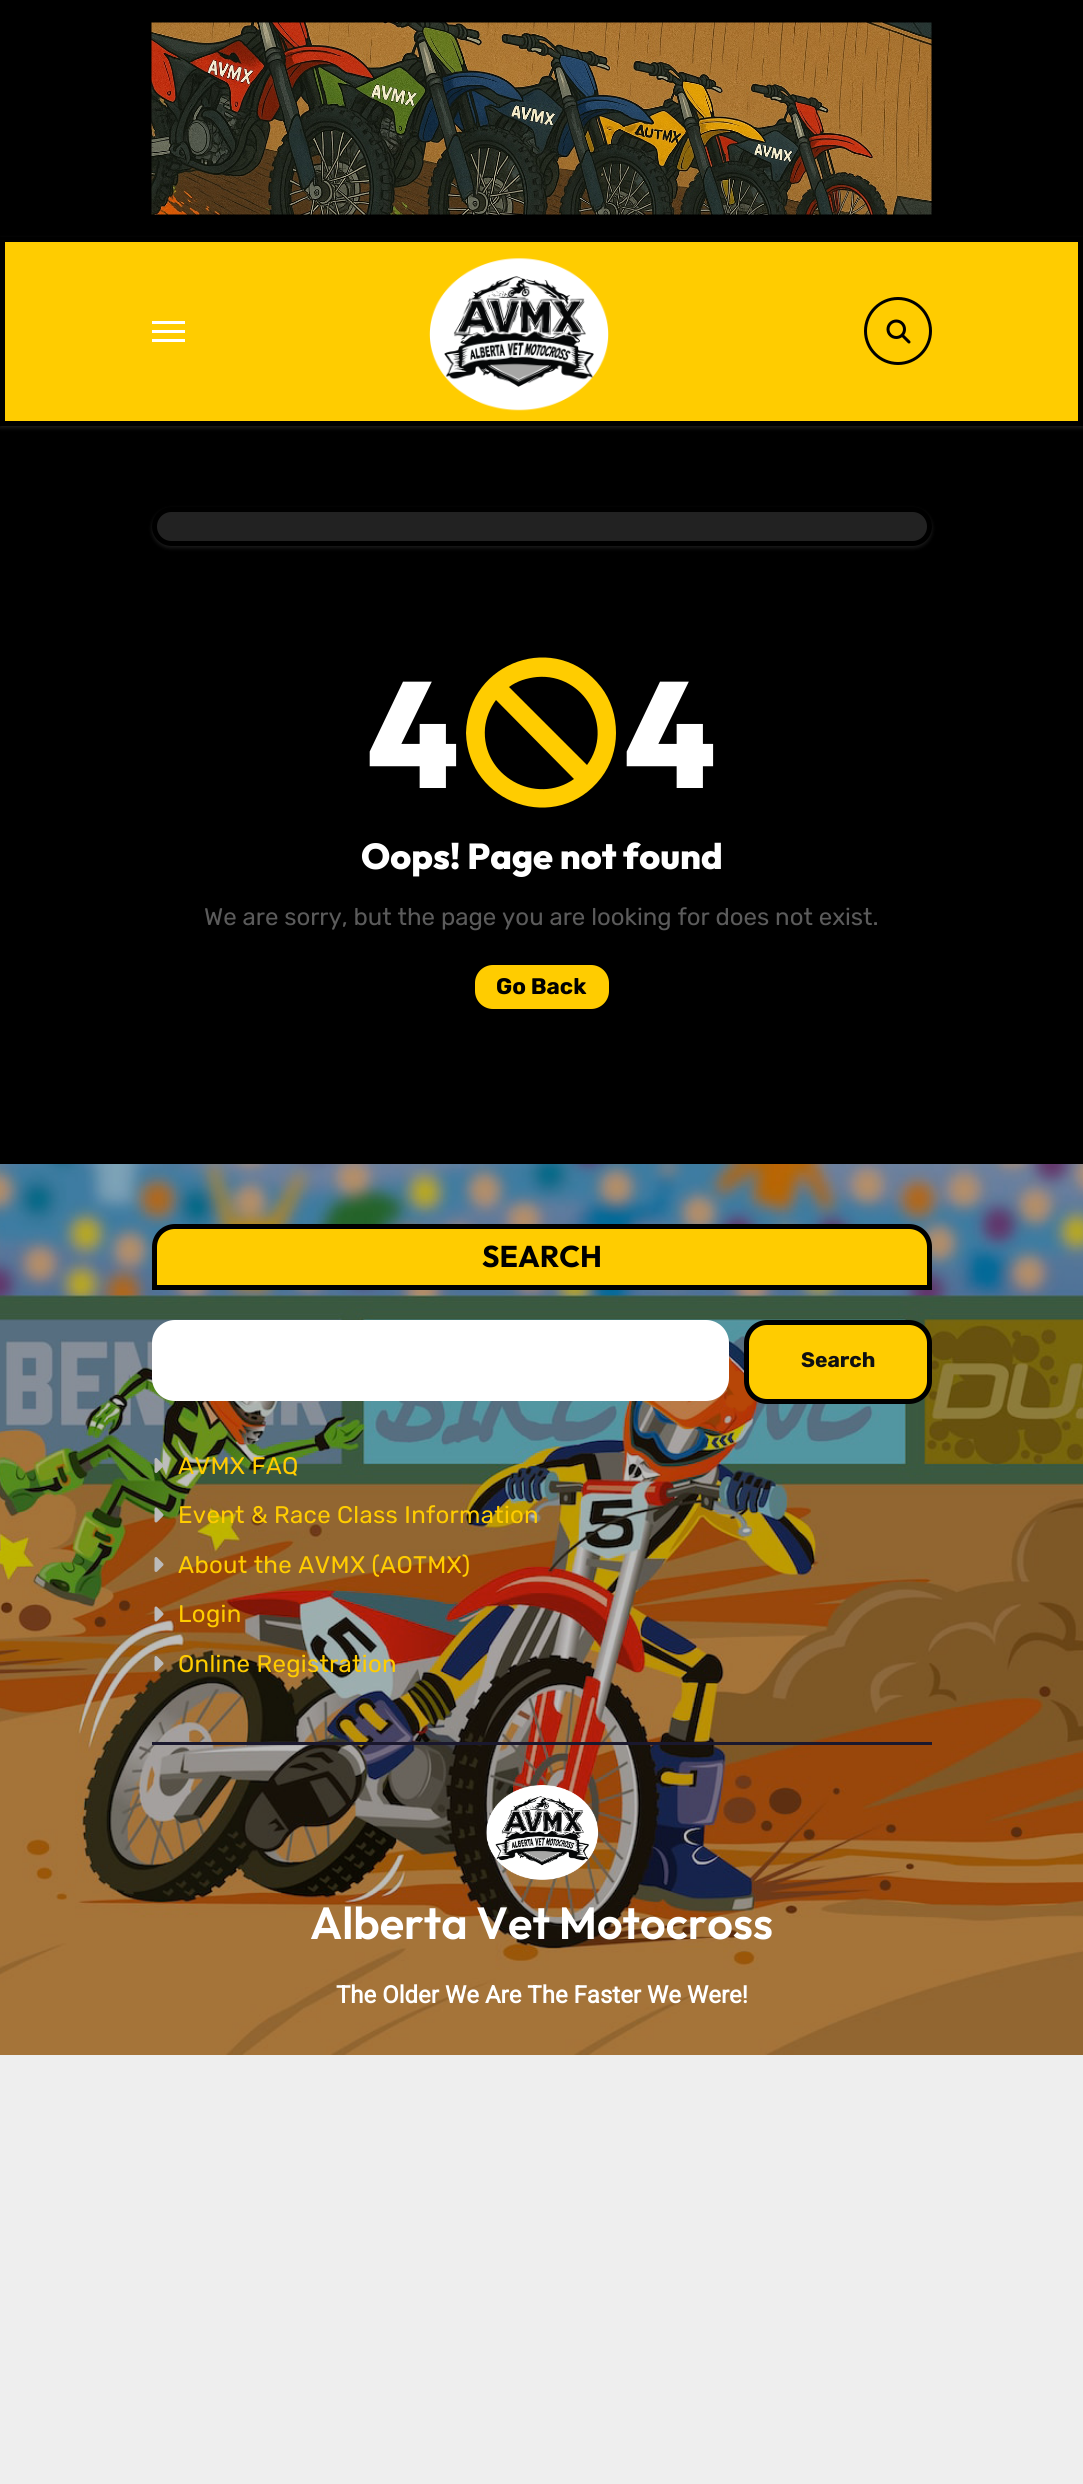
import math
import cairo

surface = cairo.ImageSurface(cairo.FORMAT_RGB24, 1083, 2484)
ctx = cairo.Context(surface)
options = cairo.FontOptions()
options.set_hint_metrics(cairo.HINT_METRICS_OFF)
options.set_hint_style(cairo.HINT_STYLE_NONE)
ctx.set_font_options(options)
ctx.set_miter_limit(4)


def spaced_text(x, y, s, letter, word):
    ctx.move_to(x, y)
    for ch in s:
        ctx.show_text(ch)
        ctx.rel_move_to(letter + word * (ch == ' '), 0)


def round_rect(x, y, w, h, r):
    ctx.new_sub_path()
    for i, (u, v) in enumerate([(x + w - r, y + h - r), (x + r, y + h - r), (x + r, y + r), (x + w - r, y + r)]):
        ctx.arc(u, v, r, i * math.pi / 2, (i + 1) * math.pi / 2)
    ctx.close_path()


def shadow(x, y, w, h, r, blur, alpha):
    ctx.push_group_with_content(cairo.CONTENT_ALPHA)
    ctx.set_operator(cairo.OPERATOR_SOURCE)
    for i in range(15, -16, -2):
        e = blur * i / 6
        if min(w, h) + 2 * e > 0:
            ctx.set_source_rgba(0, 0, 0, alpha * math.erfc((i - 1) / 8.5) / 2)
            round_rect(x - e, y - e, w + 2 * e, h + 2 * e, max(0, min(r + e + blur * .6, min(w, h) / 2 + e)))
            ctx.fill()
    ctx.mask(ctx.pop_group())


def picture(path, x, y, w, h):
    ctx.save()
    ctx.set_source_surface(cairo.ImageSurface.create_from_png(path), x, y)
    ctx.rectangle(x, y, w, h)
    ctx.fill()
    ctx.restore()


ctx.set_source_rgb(0.933, 0.933, 0.933)
ctx.paint()
ctx.set_source_rgb(0, 0, 0)
ctx.rectangle(0, 0, 1083, 1164)
ctx.fill()
picture("img1.png", 151, 22, 781, 193)
ctx.set_source_rgb(0.725, 0.725, 0.725)
shadow(0, 239, 1083, 189, 0, 2, 0.15)
ctx.set_source_rgb(1, 0.8, 0)
ctx.rectangle(2.5, 239.5, 1078, 184)
ctx.fill_preserve()
ctx.set_source_rgb(0, 0, 0)
ctx.set_line_width(5)
ctx.stroke()
ctx.set_source_rgb(1, 1, 1)
ctx.rectangle(152, 321, 33, 3)
ctx.fill()
ctx.rectangle(152, 330, 33, 3)
ctx.fill()
ctx.rectangle(152, 339, 33, 3)
ctx.fill()
picture("img2.png", 429, 258, 180, 153)
ctx.arc(898, 331, 32.5, 0, 2 * math.pi)
ctx.set_source_rgb(0, 0, 0)
ctx.set_line_width(3)
ctx.stroke()
picture("img3.png", 886, 319, 25, 25)
ctx.set_source_rgb(0.725, 0.725, 0.725)
shadow(152, 509, 780, 39, 19.5, 2, 0.15)
ctx.set_source_rgb(0.133, 0.133, 0.133)
round_rect(154.5, 509.5, 775, 34, 17)
ctx.fill_preserve()
ctx.set_source_rgb(0, 0, 0)
ctx.set_line_width(5)
ctx.stroke()
ctx.select_font_face("Outfit ExtraBold")
ctx.set_font_size(150)
ctx.set_source_rgb(1, 1, 1)
ctx.move_to(367, 788)
ctx.show_text("4")
ctx.set_source_rgb(1, 0.8, 0)
ctx.new_path()
ctx.move_to(574, 779)
ctx.line_to(496, 700)
ctx.curve_to(490, 708, 486, 718, 485, 728)
ctx.curve_to(481, 776, 536, 806, 574, 779)
ctx.close_path()
ctx.move_to(587, 765)
ctx.curve_to(615, 727, 584, 673, 537, 677)
ctx.curve_to(527, 678, 517, 681, 509, 687)
ctx.close_path()
ctx.move_to(466, 733)
ctx.curve_to(468, 661, 557, 630, 601, 687)
ctx.curve_to(611, 700, 616, 716, 616, 733)
ctx.curve_to(616, 749, 611, 765, 601, 778)
ctx.curve_to(557, 835, 468, 804, 466, 733)
ctx.close_path()
ctx.fill()
ctx.set_source_rgb(1, 1, 1)
ctx.move_to(624, 788)
ctx.show_text("4")
ctx.set_font_size(36)
ctx.move_to(361, 869)
ctx.show_text("Oops! Page not found")
ctx.select_font_face("Rubik Light")
ctx.set_font_size(24)
ctx.set_source_rgb(0.357, 0.357, 0.357)
ctx.move_to(204, 925)
ctx.show_text("We are sorry, but the page you are looking for does not exist.")
ctx.set_source_rgb(1, 0.8, 0)
round_rect(472.5, 962.5, 139, 49, 20.5)
ctx.fill_preserve()
ctx.set_source_rgb(0, 0, 0)
ctx.stroke()
ctx.select_font_face("Rubik", cairo.FONT_SLANT_NORMAL, cairo.FONT_WEIGHT_BOLD)
ctx.set_font_size(22.5)
ctx.move_to(496, 994)
ctx.show_text("Go Back")
picture("img4.png", 0, 1164, 1083, 891)
ctx.set_source_rgb(1, 0.8, 0)
ctx.new_path()
ctx.move_to(175, 1226.5)
ctx.line_to(909, 1226.5)
ctx.curve_to(920.5, 1226.5, 929.5, 1235.5, 929.5, 1247)
ctx.line_to(929.5, 1287.5)
ctx.line_to(154.5, 1287.5)
ctx.line_to(154.5, 1247)
ctx.curve_to(154.5, 1235.5, 163.5, 1226.5, 175, 1226.5)
ctx.close_path()
ctx.fill_preserve()
ctx.set_source_rgb(0, 0, 0)
ctx.stroke()
ctx.select_font_face("Outfit", cairo.FONT_SLANT_NORMAL, cairo.FONT_WEIGHT_BOLD)
ctx.set_font_size(30)
ctx.move_to(482, 1267)
ctx.show_text("SEARCH")
ctx.set_source_rgb(1, 1, 1)
round_rect(154.5, 1322.5, 572, 76, 20.5)
ctx.fill_preserve()
ctx.stroke()
ctx.set_source_rgb(1, 0.8, 0)
round_rect(746.5, 1322.5, 183, 79, 20.5)
ctx.fill_preserve()
ctx.set_source_rgb(0, 0, 0)
ctx.stroke()
ctx.select_font_face("Rubik", cairo.FONT_SLANT_NORMAL, cairo.FONT_WEIGHT_BOLD)
ctx.set_font_size(21)
ctx.set_source_rgb(0.059, 0.063, 0.071)
ctx.move_to(801, 1367)
ctx.show_text("Search")
picture("img5.png", 154, 1458, 9, 15)
ctx.select_font_face("Rubik Light")
ctx.set_font_size(24)
ctx.set_source_rgb(1, 0.8, 0)
spaced_text(178, 1474, "AVMX FAQ", 0.3, 0)
picture("img6.png", 154, 1507, 10, 16)
spaced_text(178, 1523, "Event & Race Class Information", 0.3, 0)
picture("img7.png", 154, 1557, 10, 15)
spaced_text(178, 1573, "About the AVMX (AOTMX)", 0.3, 0)
picture("img8.png", 154, 1606, 10, 16)
spaced_text(178, 1622, "Login", 0.3, 0)
picture("img9.png", 154, 1656, 10, 15)
spaced_text(178, 1672, "Online Registration", 0.3, 0)
ctx.set_source_rgb(0.102, 0.094, 0.18)
ctx.rectangle(152, 1742, 780, 3)
ctx.fill()
picture("img10.png", 486, 1785, 113, 95)
ctx.select_font_face("Outfit SemiBold")
ctx.set_font_size(45)
ctx.set_source_rgb(1, 1, 1)
ctx.move_to(310, 1939)
ctx.show_text("Alberta Vet Motocross")
ctx.select_font_face("Roboto", cairo.FONT_SLANT_NORMAL, cairo.FONT_WEIGHT_BOLD)
ctx.set_font_size(24)
ctx.move_to(336, 2003)
ctx.show_text("The Older We Are The Faster We Were!")
surface.write_to_png("page.png")
